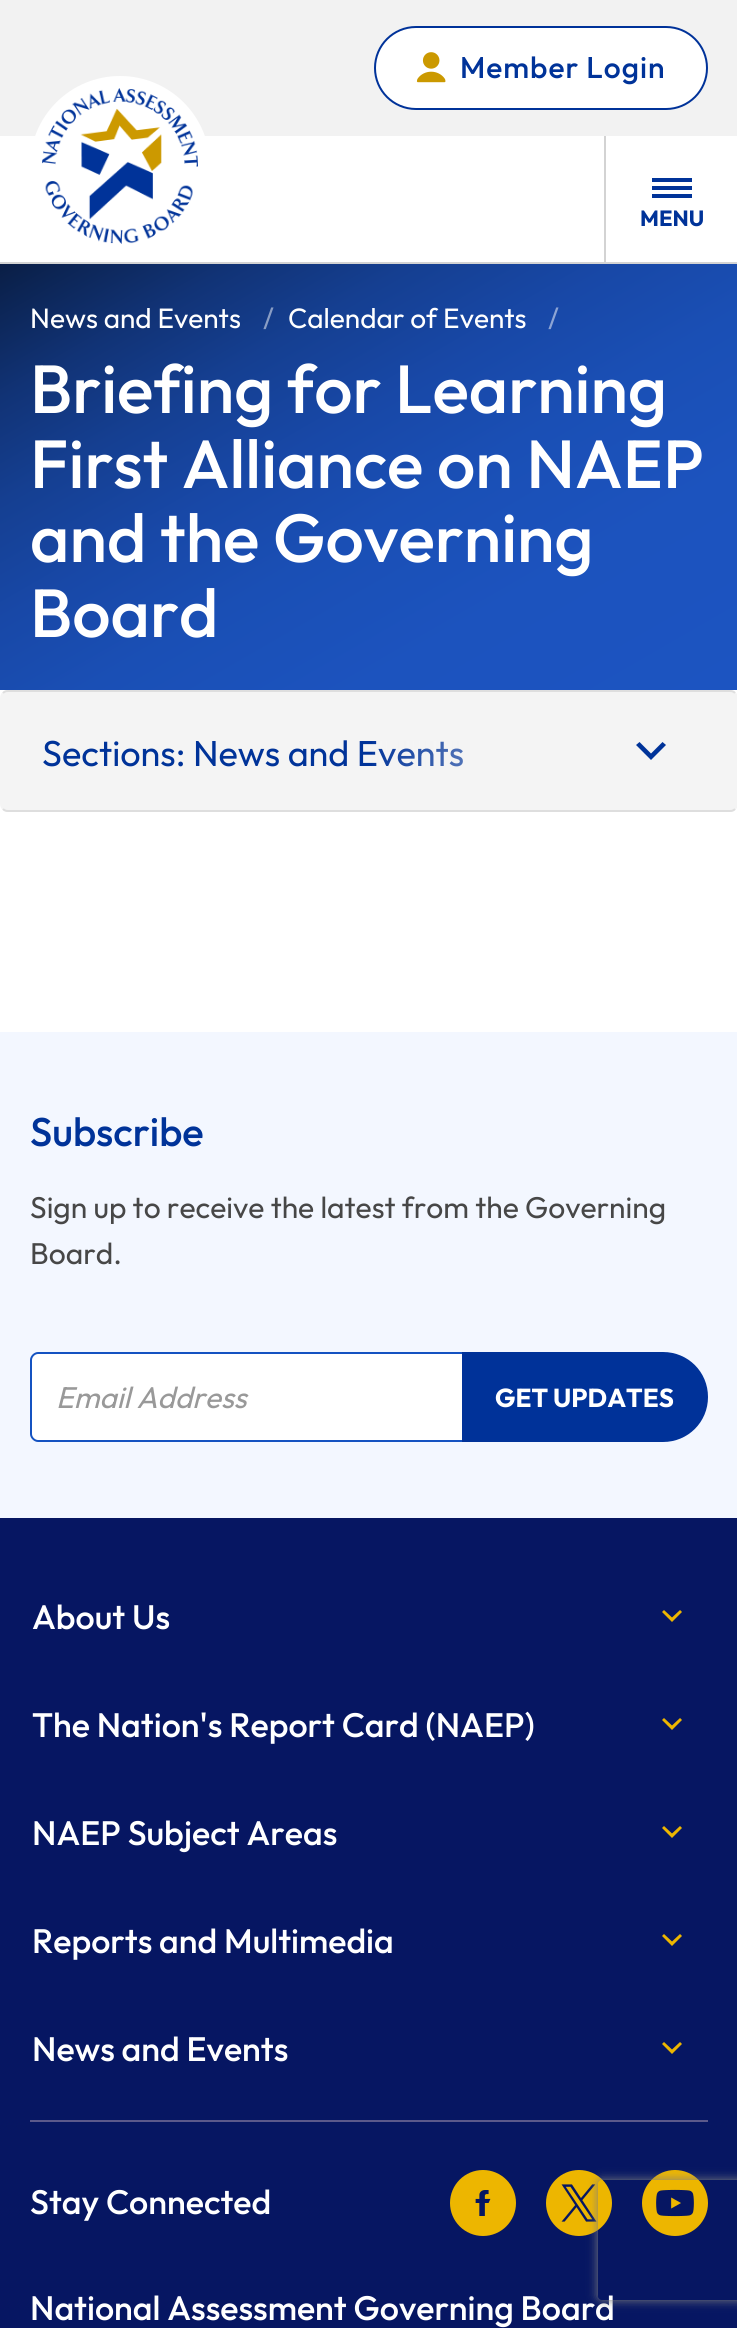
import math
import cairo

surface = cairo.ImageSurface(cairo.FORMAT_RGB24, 737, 2328)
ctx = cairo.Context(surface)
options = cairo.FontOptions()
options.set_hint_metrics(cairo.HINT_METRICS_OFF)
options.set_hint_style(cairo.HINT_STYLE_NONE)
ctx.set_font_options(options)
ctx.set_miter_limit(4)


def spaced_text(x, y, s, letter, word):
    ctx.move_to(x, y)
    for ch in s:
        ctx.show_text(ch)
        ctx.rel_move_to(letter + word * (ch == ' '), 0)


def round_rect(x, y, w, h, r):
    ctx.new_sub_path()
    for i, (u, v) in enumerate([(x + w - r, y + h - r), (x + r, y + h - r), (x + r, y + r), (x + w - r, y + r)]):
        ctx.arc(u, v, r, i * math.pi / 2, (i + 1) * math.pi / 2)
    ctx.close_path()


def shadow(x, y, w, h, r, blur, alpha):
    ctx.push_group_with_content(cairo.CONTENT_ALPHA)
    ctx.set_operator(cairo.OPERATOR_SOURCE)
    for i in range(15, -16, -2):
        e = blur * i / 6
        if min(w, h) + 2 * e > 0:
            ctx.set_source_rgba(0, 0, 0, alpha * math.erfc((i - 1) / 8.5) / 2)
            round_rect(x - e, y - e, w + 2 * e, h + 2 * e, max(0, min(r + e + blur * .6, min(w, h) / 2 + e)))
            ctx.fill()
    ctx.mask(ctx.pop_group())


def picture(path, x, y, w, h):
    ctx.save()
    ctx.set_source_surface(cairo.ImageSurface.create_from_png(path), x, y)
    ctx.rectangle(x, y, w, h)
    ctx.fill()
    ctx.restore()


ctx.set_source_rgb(1, 1, 1)
ctx.paint()
ctx.set_source_rgb(0.949, 0.949, 0.949)
ctx.rectangle(0, 0, 737, 136)
ctx.fill()
ctx.set_source_rgb(1, 1, 1)
round_rect(375, 27, 332, 82, 41)
ctx.fill_preserve()
ctx.set_source_rgb(0, 0.196, 0.6)
ctx.stroke()
picture("img1.png", 416, 52, 30, 31)
ctx.select_font_face("Outfit Medium")
ctx.set_font_size(30)
ctx.set_source_rgb(0, 0.2, 0.6)
spaced_text(460, 78, "Member Login", 1, 0)
ctx.set_source_rgb(0.827, 0.827, 0.827)
ctx.rectangle(0, 262, 737, 2)
ctx.fill()
ctx.set_source_rgb(1, 1, 1)
ctx.arc(120, 166, 84, 0, 2 * math.pi)
ctx.fill_preserve()
ctx.set_line_width(12)
ctx.stroke()
picture("img2.png", 42, 88, 156, 156)
ctx.set_source_rgb(0.827, 0.827, 0.827)
ctx.rectangle(604, 136, 2, 126)
ctx.fill()
ctx.set_source_rgb(0, 0.2, 0.6)
ctx.new_path()
ctx.move_to(692, 198)
ctx.line_to(652, 198)
ctx.line_to(652, 194)
ctx.line_to(692, 194)
ctx.close_path()
ctx.move_to(692, 190)
ctx.line_to(652, 190)
ctx.line_to(652, 186)
ctx.line_to(692, 186)
ctx.close_path()
ctx.move_to(692, 182)
ctx.line_to(652, 182)
ctx.line_to(652, 178)
ctx.line_to(692, 178)
ctx.close_path()
ctx.fill()
ctx.select_font_face("Outfit", cairo.FONT_SLANT_NORMAL, cairo.FONT_WEIGHT_BOLD)
ctx.set_font_size(22)
ctx.move_to(640, 226)
ctx.show_text("MENU")
gradient = cairo.LinearGradient(553, 796, 185, 157)
gradient.add_color_stop_rgba(0, 0.11, 0.329, 0.757, 1)
gradient.add_color_stop_rgba(0.26, 0.11, 0.325, 0.745, 1)
gradient.add_color_stop_rgba(0.44, 0.102, 0.31, 0.71, 1)
gradient.add_color_stop_rgba(0.58, 0.094, 0.282, 0.655, 1)
gradient.add_color_stop_rgba(0.72, 0.082, 0.247, 0.569, 1)
gradient.add_color_stop_rgba(0.84, 0.067, 0.2, 0.463, 1)
gradient.add_color_stop_rgba(0.95, 0.047, 0.145, 0.333, 1)
gradient.add_color_stop_rgba(1, 0.039, 0.118, 0.271, 1)
ctx.set_source(gradient)
ctx.rectangle(0, 264, 737, 426)
ctx.fill()
ctx.select_font_face("Outfit")
ctx.set_font_size(28)
ctx.set_source_rgb(1, 1, 1)
ctx.move_to(30, 328)
ctx.show_text("News and Events")
ctx.set_source_rgb(0.537, 0.616, 0.769)
ctx.move_to(263, 328)
ctx.show_text("/")
ctx.set_source_rgb(1, 1, 1)
ctx.move_to(288, 328)
ctx.show_text("Calendar of Events")
ctx.set_source_rgb(0.549, 0.643, 0.831)
ctx.move_to(548, 328)
ctx.show_text("/")
ctx.select_font_face("Outfit Medium")
ctx.set_font_size(68)
ctx.set_source_rgb(1, 1, 1)
ctx.move_to(30, 413)
ctx.show_text("Briefing for Learning")
ctx.move_to(30, 488)
ctx.show_text("First Alliance on NAEP")
ctx.move_to(30, 562)
ctx.show_text("and the Governing")
ctx.move_to(30, 637)
ctx.show_text("Board")
ctx.set_source_rgb(0.957, 0.957, 0.957)
round_rect(0, 690, 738, 122, 8)
ctx.fill()
ctx.new_path()
ctx.move_to(3, 693)
ctx.curve_to(4.5, 691.5, 6, 691, 8, 691)
ctx.line_to(730, 691)
ctx.curve_to(732, 691, 733.5, 691.5, 735, 693)
ctx.set_source_rgb(0.871, 0.871, 0.871)
ctx.set_line_width(2)
ctx.stroke()
ctx.new_path()
ctx.move_to(735, 809)
ctx.curve_to(733.5, 810.5, 732, 811, 730, 811)
ctx.line_to(8, 811)
ctx.curve_to(6, 811, 4.5, 810.5, 3, 809)
ctx.stroke()
ctx.select_font_face("Outfit")
ctx.set_font_size(36)
ctx.set_source_rgb(0, 0.2, 0.6)
ctx.move_to(42, 766)
ctx.show_text("Sections: News and Events")
gradient = cairo.LinearGradient(366, 751, 666, 751)
gradient.add_color_stop_rgba(0, 0.957, 0.957, 0.957, 0)
gradient.add_color_stop_rgba(1, 0.957, 0.957, 0.957, 1)
ctx.set_source(gradient)
ctx.rectangle(372, 741, 91, 26)
ctx.fill()
ctx.set_source_rgb(0, 0.2, 0.6)
ctx.new_path()
ctx.move_to(662.5, 742)
ctx.line_to(666, 745)
ctx.line_to(651, 760)
ctx.line_to(636, 745)
ctx.line_to(639.5, 742)
ctx.line_to(651, 753.5)
ctx.close_path()
ctx.fill()
ctx.set_source_rgb(0.953, 0.965, 1)
ctx.rectangle(0, 1032, 737, 486)
ctx.fill()
ctx.select_font_face("Outfit Medium")
ctx.set_font_size(40)
ctx.set_source_rgb(0, 0.2, 0.6)
ctx.move_to(30, 1146)
ctx.show_text("Subscribe")
ctx.select_font_face("Outfit")
ctx.set_font_size(30)
ctx.set_source_rgb(0.278, 0.278, 0.278)
ctx.move_to(30, 1218)
ctx.show_text("Sign up to receive the latest from the Governing")
ctx.move_to(30, 1264)
ctx.show_text("Board.")
ctx.set_source_rgb(1, 1, 1)
ctx.new_path()
ctx.move_to(38, 1354)
ctx.line_to(462, 1354)
ctx.line_to(462, 1440)
ctx.line_to(38, 1440)
ctx.curve_to(34.5, 1440, 32, 1437.5, 32, 1434)
ctx.line_to(32, 1360)
ctx.curve_to(32, 1356.5, 34.5, 1354, 38, 1354)
ctx.close_path()
ctx.fill()
ctx.set_source_rgb(0.082, 0.322, 0.757)
ctx.set_fill_rule(cairo.FILL_RULE_EVEN_ODD)
ctx.new_path()
ctx.move_to(38, 1352)
ctx.line_to(462, 1352)
ctx.line_to(462, 1442)
ctx.line_to(38, 1442)
ctx.curve_to(34, 1442, 30, 1438, 30, 1434)
ctx.line_to(30, 1360)
ctx.curve_to(30, 1356, 34, 1352, 38, 1352)
ctx.close_path()
ctx.move_to(38, 1354)
ctx.line_to(462, 1354)
ctx.line_to(462, 1440)
ctx.line_to(38, 1440)
ctx.curve_to(35, 1440, 32, 1437, 32, 1434)
ctx.line_to(32, 1360)
ctx.curve_to(32, 1357, 35, 1354, 38, 1354)
ctx.close_path()
ctx.fill()
ctx.select_font_face("Outfit", cairo.FONT_SLANT_ITALIC)
ctx.set_source_rgb(0.6, 0.6, 0.6)
ctx.move_to(56, 1408)
ctx.show_text("Email Address")
ctx.set_source_rgb(0, 0.196, 0.6)
ctx.new_path()
ctx.move_to(463, 1353)
ctx.line_to(663, 1353)
ctx.curve_to(687.5, 1353, 707, 1372.5, 707, 1397)
ctx.curve_to(707, 1421.5, 687.5, 1441, 663, 1441)
ctx.line_to(463, 1441)
ctx.close_path()
ctx.fill_preserve()
ctx.stroke()
ctx.select_font_face("Outfit", cairo.FONT_SLANT_NORMAL, cairo.FONT_WEIGHT_BOLD)
ctx.set_font_size(26)
ctx.set_source_rgb(1, 1, 1)
ctx.move_to(495, 1407)
ctx.show_text("GET UPDATES")
ctx.set_source_rgb(0.024, 0.086, 0.384)
ctx.rectangle(0, 1518, 737, 810)
ctx.fill()
ctx.select_font_face("Outfit Medium")
ctx.set_font_size(34)
ctx.set_source_rgb(1, 1, 1)
ctx.move_to(32, 1629)
ctx.show_text("About Us")
ctx.set_source_rgb(0.929, 0.714, 0)
ctx.set_fill_rule(cairo.FILL_RULE_WINDING)
ctx.new_path()
ctx.move_to(680, 1610)
ctx.line_to(682, 1612)
ctx.line_to(672, 1622)
ctx.line_to(662, 1612)
ctx.line_to(664, 1610)
ctx.line_to(672, 1617.5)
ctx.close_path()
ctx.fill()
ctx.set_source_rgb(1, 1, 1)
ctx.move_to(32, 1737)
ctx.show_text("The Nation's Report Card (NAEP)")
ctx.set_source_rgb(0.929, 0.714, 0)
ctx.new_path()
ctx.move_to(680, 1718)
ctx.line_to(682, 1720)
ctx.line_to(672, 1730)
ctx.line_to(662, 1720)
ctx.line_to(664, 1718)
ctx.line_to(672, 1725.5)
ctx.close_path()
ctx.fill()
ctx.set_source_rgb(1, 1, 1)
ctx.move_to(32, 1845)
ctx.show_text("NAEP Subject Areas")
ctx.set_source_rgb(0.929, 0.714, 0)
ctx.new_path()
ctx.move_to(680, 1826)
ctx.line_to(682, 1828)
ctx.line_to(672, 1838)
ctx.line_to(662, 1828)
ctx.line_to(664, 1826)
ctx.line_to(672, 1833.5)
ctx.close_path()
ctx.fill()
ctx.set_source_rgb(1, 1, 1)
ctx.move_to(32, 1953)
ctx.show_text("Reports and Multimedia")
ctx.set_source_rgb(0.929, 0.714, 0)
ctx.new_path()
ctx.move_to(680, 1934)
ctx.line_to(682, 1936)
ctx.line_to(672, 1946)
ctx.line_to(662, 1936)
ctx.line_to(664, 1934)
ctx.line_to(672, 1941.5)
ctx.close_path()
ctx.fill()
ctx.set_source_rgb(1, 1, 1)
ctx.move_to(32, 2061)
ctx.show_text("News and Events")
ctx.set_source_rgb(0.929, 0.714, 0)
ctx.new_path()
ctx.move_to(680, 2042)
ctx.line_to(682, 2044)
ctx.line_to(672, 2054)
ctx.line_to(662, 2044)
ctx.line_to(664, 2042)
ctx.line_to(672, 2049.5)
ctx.close_path()
ctx.fill()
ctx.set_source_rgb(0.357, 0.349, 0.545)
ctx.rectangle(30, 2120, 678, 2)
ctx.fill()
ctx.set_source_rgb(1, 1, 1)
ctx.move_to(30, 2214)
ctx.show_text("Stay Connected")
ctx.set_source_rgb(0.929, 0.714, 0)
ctx.new_path()
ctx.arc(483, 2203, 33, 0, 2 * math.pi)
ctx.fill()
picture("img3.png", 475, 2190, 16, 26)
ctx.arc(579, 2203, 33, 0, 2 * math.pi)
ctx.fill()
picture("img4.png", 561, 2184, 36, 38)
ctx.arc(675, 2203, 33, 0, 2 * math.pi)
ctx.fill()
picture("img5.png", 656, 2189, 38, 28)
ctx.set_source_rgb(1, 1, 1)
ctx.move_to(30, 2320)
ctx.show_text("National Assessment Governing Board")
ctx.save()
ctx.set_fill_rule(cairo.FILL_RULE_EVEN_ODD)
ctx.new_path()
ctx.move_to(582, 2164)
ctx.line_to(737, 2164)
ctx.line_to(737, 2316)
ctx.line_to(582, 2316)
ctx.close_path()
ctx.move_to(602, 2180)
ctx.line_to(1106, 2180)
ctx.curve_to(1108, 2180, 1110, 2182, 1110, 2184)
ctx.line_to(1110, 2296)
ctx.curve_to(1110, 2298, 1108, 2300, 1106, 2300)
ctx.line_to(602, 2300)
ctx.curve_to(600, 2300, 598, 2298, 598, 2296)
ctx.line_to(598, 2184)
ctx.curve_to(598, 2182, 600, 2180, 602, 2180)
ctx.close_path()
ctx.clip()
ctx.set_source_rgb(0.502, 0.502, 0.502)
shadow(598, 2180, 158, 120, 4, 5, 1)
ctx.restore()
surface.write_to_png("page.png")
